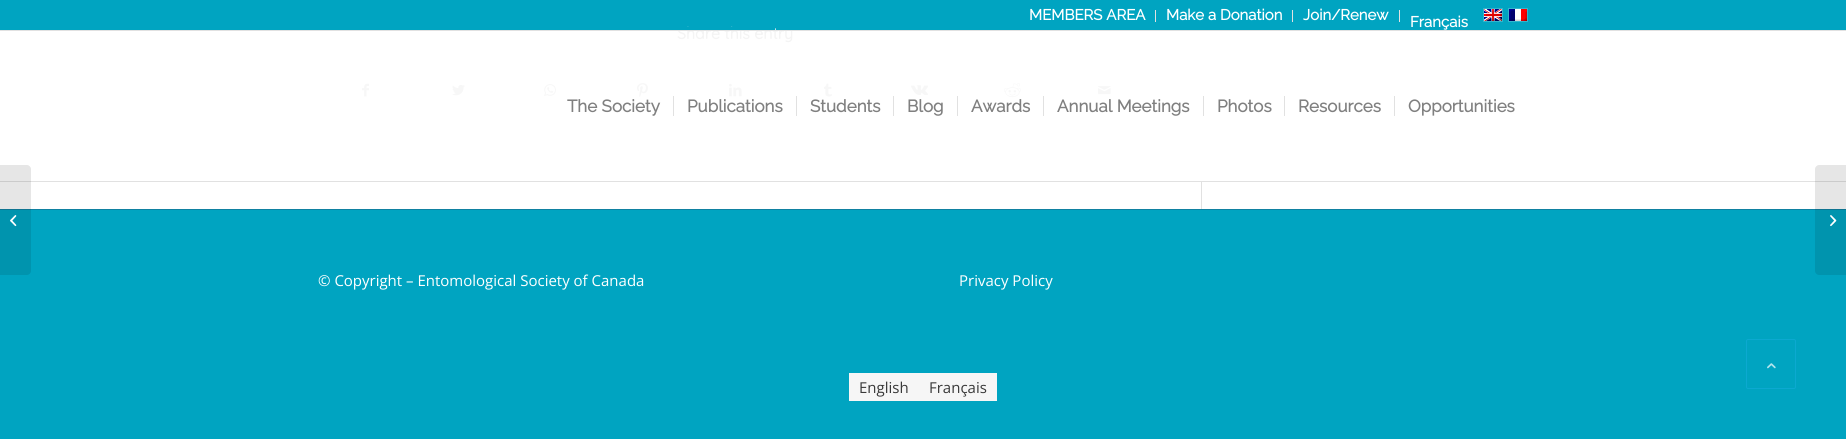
import math
import cairo

surface = cairo.ImageSurface(cairo.FORMAT_RGB24, 1846, 439)
ctx = cairo.Context(surface)
options = cairo.FontOptions()
options.set_hint_metrics(cairo.HINT_METRICS_OFF)
options.set_hint_style(cairo.HINT_STYLE_NONE)
ctx.set_font_options(options)
ctx.set_miter_limit(4)


def round_rect(x, y, w, h, r):
    ctx.new_sub_path()
    for i, (u, v) in enumerate([(x + w - r, y + h - r), (x + r, y + h - r), (x + r, y + r), (x + w - r, y + r)]):
        ctx.arc(u, v, r, i * math.pi / 2, (i + 1) * math.pi / 2)
    ctx.close_path()


def picture(path, x, y, w, h):
    ctx.save()
    ctx.set_source_surface(cairo.ImageSurface.create_from_png(path), x, y)
    ctx.rectangle(x, y, w, h)
    ctx.fill()
    ctx.restore()


ctx.set_source_rgb(0, 0.643, 0.757)
ctx.paint()
ctx.set_source_rgb(1, 1, 1)
ctx.rectangle(0, 31, 1846, 150)
ctx.fill()
ctx.select_font_face("Quicksand", cairo.FONT_SLANT_NORMAL, cairo.FONT_WEIGHT_BOLD)
ctx.set_font_size(16)
ctx.set_source_rgb(0.957, 0.957, 0.957)
ctx.move_to(677, 39)
ctx.show_text("Share this entry")
ctx.set_source_rgb(0, 0.643, 0.757)
ctx.rectangle(677, 27, 98, 3)
ctx.fill()
ctx.set_source_rgb(0.882, 0.882, 0.882)
ctx.rectangle(0, 30, 1846, 1)
ctx.fill()
ctx.rectangle(1155, 10, 1, 12)
ctx.fill()
ctx.select_font_face("Raleway", cairo.FONT_SLANT_NORMAL, cairo.FONT_WEIGHT_BOLD)
ctx.set_font_size(15)
ctx.set_source_rgb(1, 1, 1)
ctx.move_to(1029, 20)
ctx.show_text("MEMBERS AREA")
ctx.set_source_rgb(0.882, 0.882, 0.882)
ctx.rectangle(1292, 10, 1, 12)
ctx.fill()
ctx.set_source_rgb(1, 1, 1)
ctx.move_to(1166, 20)
ctx.show_text("Make a Donation")
ctx.set_source_rgb(0.882, 0.882, 0.882)
ctx.rectangle(1399, 10, 1, 12)
ctx.fill()
ctx.set_source_rgb(1, 1, 1)
ctx.move_to(1303, 20)
ctx.show_text("Join/Renew")
ctx.move_to(1410, 27)
ctx.show_text("Français")
ctx.rectangle(1483.5, 8.5, 19, 13)
ctx.set_source_rgb(0.2, 0.714, 0.804)
ctx.set_line_width(1)
ctx.stroke()
picture("img1.png", 1484, 9, 18, 12)
ctx.rectangle(1508.5, 8.5, 19, 13)
ctx.stroke()
picture("img2.png", 1509, 9, 18, 12)
ctx.set_source_rgb(0.996, 0.996, 0.996)
ctx.rectangle(1201, 181, 1, 1)
ctx.fill()
ctx.set_source_rgb(0.882, 0.882, 0.882)
ctx.rectangle(0, 181, 1846, 1)
ctx.fill()
ctx.set_font_size(17)
ctx.set_source_rgb(0.502, 0.502, 0.502)
ctx.move_to(567, 112)
ctx.show_text("The Society")
ctx.move_to(687, 112)
ctx.show_text("Publications")
ctx.set_source_rgb(0.882, 0.882, 0.882)
ctx.rectangle(673, 96, 1, 20)
ctx.fill()
ctx.set_source_rgb(0.502, 0.502, 0.502)
ctx.move_to(810, 112)
ctx.show_text("Students")
ctx.set_source_rgb(0.882, 0.882, 0.882)
ctx.rectangle(796, 96, 1, 20)
ctx.fill()
ctx.set_source_rgb(0.502, 0.502, 0.502)
ctx.move_to(907, 112)
ctx.show_text("Blog")
ctx.set_source_rgb(0.882, 0.882, 0.882)
ctx.rectangle(893, 96, 1, 20)
ctx.fill()
ctx.set_source_rgb(0.502, 0.502, 0.502)
ctx.move_to(971, 112)
ctx.show_text("Awards")
ctx.set_source_rgb(0.882, 0.882, 0.882)
ctx.rectangle(957, 96, 1, 20)
ctx.fill()
ctx.set_source_rgb(0.502, 0.502, 0.502)
ctx.move_to(1057, 112)
ctx.show_text("Annual Meetings")
ctx.set_source_rgb(0.882, 0.882, 0.882)
ctx.rectangle(1043, 96, 1, 20)
ctx.fill()
ctx.set_source_rgb(0.502, 0.502, 0.502)
ctx.move_to(1217, 112)
ctx.show_text("Photos")
ctx.set_source_rgb(0.882, 0.882, 0.882)
ctx.rectangle(1203, 96, 1, 20)
ctx.fill()
ctx.set_source_rgb(0.502, 0.502, 0.502)
ctx.move_to(1298, 112)
ctx.show_text("Resources")
ctx.set_source_rgb(0.882, 0.882, 0.882)
ctx.rectangle(1284, 96, 1, 20)
ctx.fill()
ctx.set_source_rgb(0.502, 0.502, 0.502)
ctx.move_to(1408, 112)
ctx.show_text("Opportunities")
ctx.set_source_rgb(0.882, 0.882, 0.882)
ctx.rectangle(1394, 96, 1, 20)
ctx.fill()
ctx.set_source_rgb(1, 1, 1)
ctx.rectangle(0, 182, 1846, 27)
ctx.fill()
ctx.set_source_rgb(0.059, 0.506, 0.631)
ctx.rectangle(0, 209, 1846, 1)
ctx.fill()
ctx.set_source_rgba(0, 0, 0, 0.1)
ctx.new_path()
ctx.move_to(0, 165)
ctx.line_to(27, 165)
ctx.curve_to(29, 165, 31, 167, 31, 169)
ctx.line_to(31, 271)
ctx.curve_to(31, 273, 29, 275, 27, 275)
ctx.line_to(0, 275)
ctx.close_path()
ctx.fill()
picture("img3.png", 10, 215, 7, 12)
ctx.set_source_rgb(0.882, 0.882, 0.882)
ctx.rectangle(1201, 182, 1, 27)
ctx.fill()
picture("img4.png", 362, 83, 7, 14)
picture("img5.png", 452, 84, 13, 12)
picture("img6.png", 544, 84, 12, 13)
picture("img7.png", 637, 83, 11, 14)
picture("img8.png", 729, 83, 13, 14)
picture("img9.png", 824, 83, 8, 14)
picture("img10.png", 911, 85, 17, 10)
picture("img11.png", 1004, 83, 17, 15)
picture("img12.png", 1098, 86, 13, 9)
ctx.select_font_face("Open Sans")
ctx.set_font_size(15)
ctx.set_source_rgb(1, 1, 1)
ctx.move_to(318, 286)
ctx.show_text("© Copyright – Entomological Society of Canada")
ctx.move_to(959, 286)
ctx.show_text("Privacy Policy")
ctx.set_source_rgba(0, 0, 0, 0.1)
ctx.new_path()
ctx.move_to(1819, 165)
ctx.line_to(1846, 165)
ctx.line_to(1846, 275)
ctx.line_to(1819, 275)
ctx.curve_to(1817, 275, 1815, 273, 1815, 271)
ctx.line_to(1815, 169)
ctx.curve_to(1815, 167, 1817, 165, 1819, 165)
ctx.close_path()
ctx.fill()
picture("img13.png", 1830, 215, 7, 12)
ctx.set_source_rgb(0.961, 0.961, 0.961)
ctx.rectangle(849, 373, 148, 28)
ctx.fill()
ctx.set_source_rgb(0.224, 0.224, 0.224)
ctx.move_to(859, 393)
ctx.show_text("English")
ctx.move_to(929, 393)
ctx.show_text("Français")
round_rect(1746.5, 339.5, 49, 49, 1.5)
ctx.set_source_rgb(0.047, 0.663, 0.816)
ctx.stroke()
picture("img14.png", 1767, 363, 9, 6)
surface.write_to_png("page.png")
